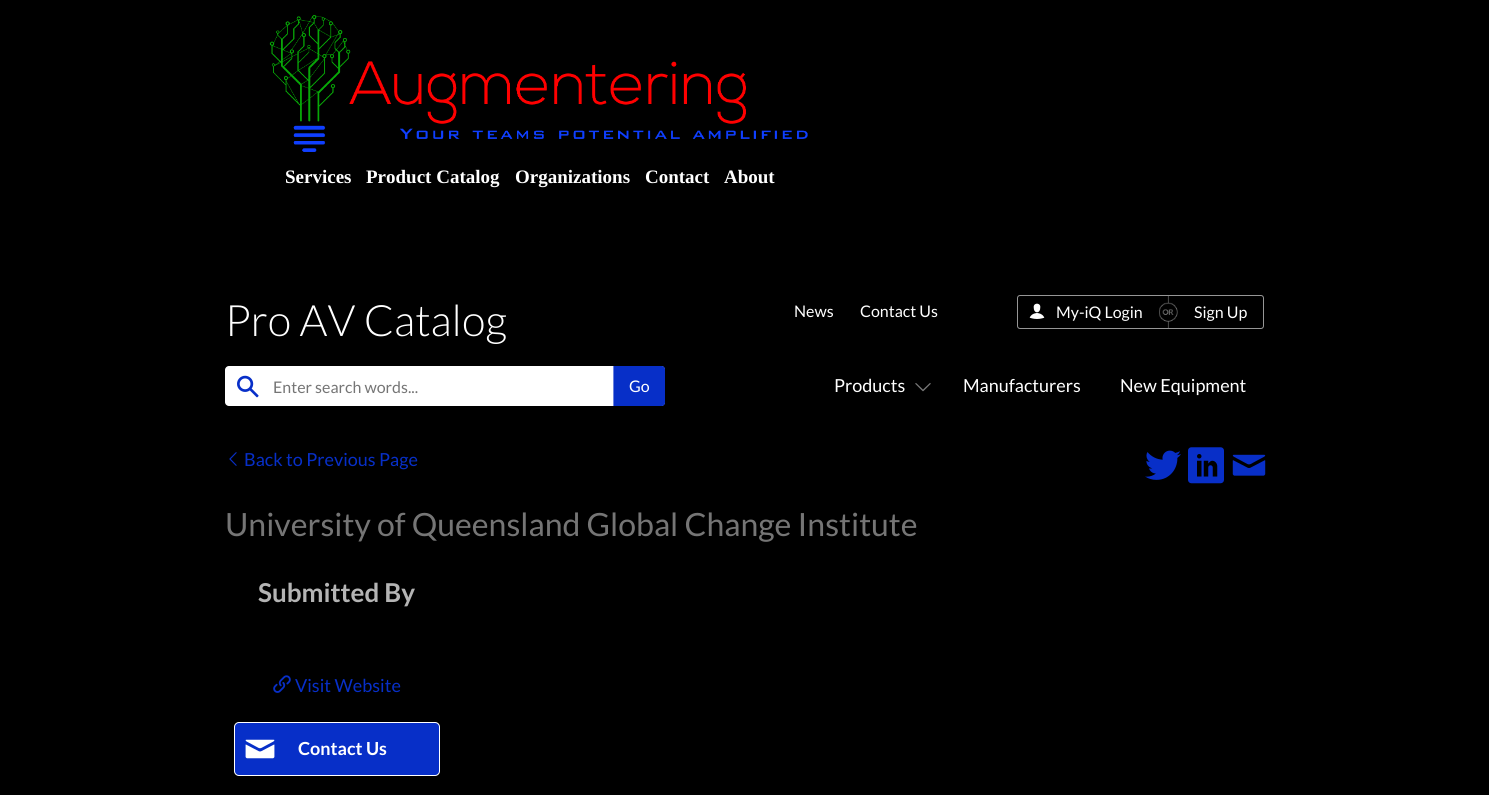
import math
import cairo

surface = cairo.ImageSurface(cairo.FORMAT_RGB24, 1489, 795)
ctx = cairo.Context(surface)
options = cairo.FontOptions()
options.set_hint_metrics(cairo.HINT_METRICS_OFF)
options.set_hint_style(cairo.HINT_STYLE_NONE)
ctx.set_font_options(options)
ctx.set_miter_limit(4)


def round_rect(x, y, w, h, r):
    ctx.new_sub_path()
    for i, (u, v) in enumerate([(x + w - r, y + h - r), (x + r, y + h - r), (x + r, y + r), (x + w - r, y + r)]):
        ctx.arc(u, v, r, i * math.pi / 2, (i + 1) * math.pi / 2)
    ctx.close_path()


def picture(path, x, y, w, h):
    ctx.save()
    ctx.set_source_surface(cairo.ImageSurface.create_from_png(path), x, y)
    ctx.rectangle(x, y, w, h)
    ctx.fill()
    ctx.restore()


ctx.set_source_rgb(0, 0, 0)
ctx.paint()
picture("img1.png", 269, 14, 539, 138)
ctx.select_font_face("Liberation Serif", cairo.FONT_SLANT_NORMAL, cairo.FONT_WEIGHT_BOLD)
ctx.set_font_size(19)
ctx.set_source_rgb(1, 1, 1)
ctx.move_to(285, 183)
ctx.show_text("Services")
ctx.move_to(366, 183)
ctx.show_text("Product Catalog")
ctx.move_to(515, 183)
ctx.show_text("Organizations")
ctx.move_to(645, 183)
ctx.show_text("Contact")
ctx.move_to(724, 183)
ctx.show_text("About")
ctx.select_font_face("Lato Light")
ctx.set_font_size(43.25)
ctx.move_to(225, 336)
ctx.show_text("Pro AV Catalog")
ctx.select_font_face("Lato")
ctx.set_font_size(16)
ctx.move_to(794, 317)
ctx.show_text("News")
ctx.move_to(860, 317)
ctx.show_text("Contact Us")
round_rect(1017.5, 295.5, 246, 33, 2.5)
ctx.set_source_rgb(0.588, 0.588, 0.588)
ctx.set_line_width(1)
ctx.stroke()
picture("img2.png", 1029, 303, 16, 16)
ctx.set_source_rgb(1, 1, 1)
ctx.move_to(1056, 318)
ctx.show_text("My-iQ Login")
picture("img3.png", 1159, 296, 19, 32)
ctx.move_to(1194, 318)
ctx.show_text("Sign Up")
round_rect(225, 366, 440, 40, 4)
ctx.fill()
picture("img4.png", 237, 375, 22, 23)
ctx.set_source_rgb(0.459, 0.459, 0.459)
ctx.move_to(273, 393)
ctx.show_text("Enter search words...")
ctx.set_source_rgb(0.031, 0.184, 0.784)
ctx.new_path()
ctx.move_to(613, 366)
ctx.line_to(662, 366)
ctx.curve_to(663.5, 366, 665, 367.5, 665, 369)
ctx.line_to(665, 403)
ctx.curve_to(665, 404.5, 663.5, 406, 662, 406)
ctx.line_to(613, 406)
ctx.close_path()
ctx.fill()
ctx.set_source_rgb(0.42, 0.51, 0.871)
ctx.rectangle(613, 366, 1, 40)
ctx.fill()
ctx.set_source_rgb(1, 1, 1)
ctx.move_to(629, 392)
ctx.show_text("Go")
ctx.set_font_size(18)
ctx.move_to(834, 392)
ctx.show_text("Products")
picture("img5.png", 915, 383, 16, 9)
ctx.move_to(963, 392)
ctx.show_text("Manufacturers")
ctx.move_to(1120, 392)
ctx.show_text("New Equipment")
picture("img6.png", 229, 452, 8, 14)
ctx.set_source_rgb(0.031, 0.184, 0.784)
ctx.move_to(244, 466)
ctx.show_text("Back to Previous Page")
picture("img7.png", 1145, 450, 36, 30)
picture("img8.png", 1188, 447, 36, 37)
picture("img9.png", 1232, 454, 34, 22)
ctx.set_font_size(32)
ctx.set_source_rgb(0.459, 0.459, 0.459)
ctx.move_to(225, 536)
ctx.show_text("University of Queensland Global Change Institute")
ctx.select_font_face("Lato", cairo.FONT_SLANT_NORMAL, cairo.FONT_WEIGHT_BOLD)
ctx.set_font_size(26)
ctx.set_source_rgb(0.706, 0.706, 0.706)
ctx.move_to(258, 602)
ctx.show_text("Submitted By")
picture("img10.png", 273, 675, 18, 18)
ctx.select_font_face("Lato")
ctx.set_font_size(18)
ctx.set_source_rgb(0.031, 0.184, 0.784)
ctx.move_to(295, 692)
ctx.show_text("Visit Website")
round_rect(234.5, 722.5, 205, 53, 4.5)
ctx.fill_preserve()
ctx.set_source_rgb(1, 1, 1)
ctx.stroke()
picture("img11.png", 245, 739, 30, 20)
ctx.select_font_face("Lato", cairo.FONT_SLANT_NORMAL, cairo.FONT_WEIGHT_BOLD)
ctx.move_to(298, 755)
ctx.show_text("Contact Us")
surface.write_to_png("page.png")
